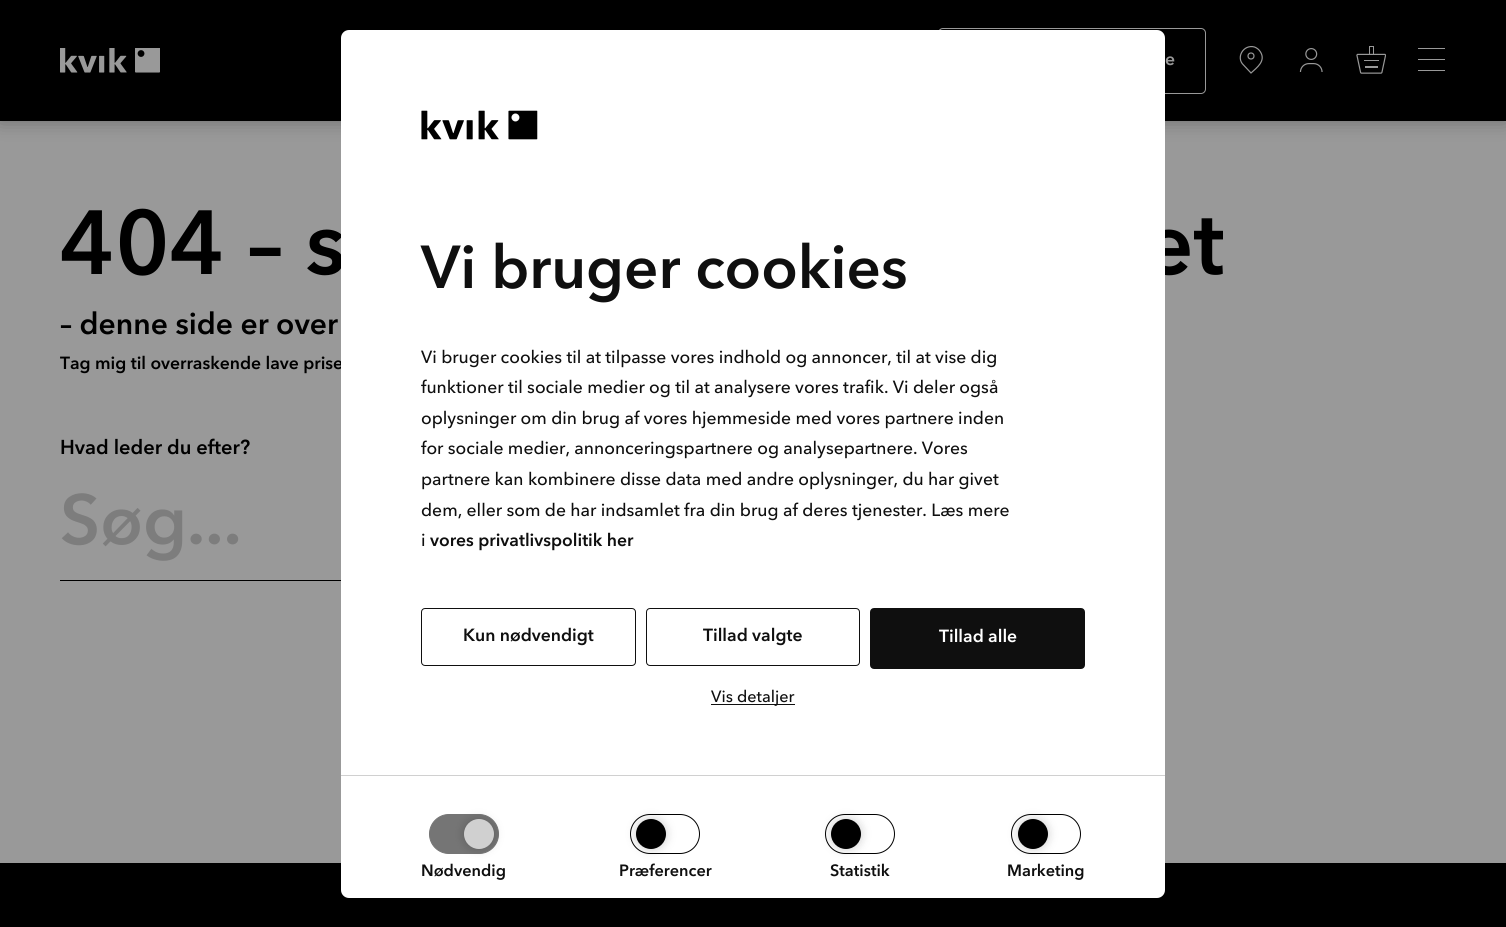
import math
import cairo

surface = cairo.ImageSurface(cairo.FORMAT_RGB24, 1506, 927)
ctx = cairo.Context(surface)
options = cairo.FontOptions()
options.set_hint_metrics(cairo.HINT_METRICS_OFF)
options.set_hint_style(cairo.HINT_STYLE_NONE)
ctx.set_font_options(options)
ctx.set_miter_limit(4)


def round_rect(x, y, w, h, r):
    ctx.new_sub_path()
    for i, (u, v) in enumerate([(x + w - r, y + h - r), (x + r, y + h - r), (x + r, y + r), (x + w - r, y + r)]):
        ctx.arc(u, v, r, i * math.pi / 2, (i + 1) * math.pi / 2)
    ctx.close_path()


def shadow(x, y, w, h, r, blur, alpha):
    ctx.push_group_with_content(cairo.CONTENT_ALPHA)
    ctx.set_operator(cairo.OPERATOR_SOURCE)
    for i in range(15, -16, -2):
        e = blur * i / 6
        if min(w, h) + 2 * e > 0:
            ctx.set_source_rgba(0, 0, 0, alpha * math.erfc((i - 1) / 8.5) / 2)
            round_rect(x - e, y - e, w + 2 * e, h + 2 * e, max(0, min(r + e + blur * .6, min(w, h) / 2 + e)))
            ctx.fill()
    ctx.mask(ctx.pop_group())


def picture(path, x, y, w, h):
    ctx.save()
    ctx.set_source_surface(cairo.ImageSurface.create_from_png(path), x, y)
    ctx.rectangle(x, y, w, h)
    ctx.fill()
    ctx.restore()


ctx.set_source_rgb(0.6, 0.6, 0.6)
ctx.paint()
ctx.set_source_rgb(0, 0, 0)
shadow(0, 1, 1506, 120, 0, 9.5, 0.3)
ctx.set_source_rgb(0, 0, 0)
ctx.rectangle(0, 0, 1506, 121)
ctx.fill()
picture("img1.png", 60, 48, 100, 25)
round_rect(938.5, 28.5, 267, 65, 4.5)
ctx.set_source_rgb(0.6, 0.6, 0.6)
ctx.set_line_width(1)
ctx.stroke()
ctx.select_font_face("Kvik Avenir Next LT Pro")
ctx.set_font_size(17.5)
ctx.move_to(1165, 65)
ctx.show_text("e")
ctx.new_path()
ctx.arc(1251, 56, 3, 0, 2 * math.pi)
ctx.set_line_width(1.2)
ctx.stroke()
ctx.new_path()
ctx.move_to(1243.5, 65)
ctx.curve_to(1235.5, 57.5, 1243.5, 44, 1254.5, 47)
ctx.curve_to(1257, 48, 1259, 49.5, 1260.5, 52)
ctx.curve_to(1266, 61, 1257, 67.5, 1251, 73)
ctx.close_path()
ctx.stroke()
picture("img2.png", 1299, 48, 24, 24)
picture("img3.png", 1356, 46, 30, 28)
ctx.rectangle(1418, 48, 27, 1)
ctx.fill()
ctx.rectangle(1418, 59, 27, 1)
ctx.fill()
ctx.rectangle(1418, 70, 27, 1)
ctx.fill()
ctx.set_font_size(90)
ctx.set_source_rgb(0, 0, 0)
ctx.move_to(60, 274)
ctx.show_text("404 – s")
ctx.move_to(1142, 274)
ctx.show_text("et")
ctx.set_font_size(30)
ctx.move_to(60, 334)
ctx.show_text("– denne side er over")
ctx.set_font_size(17.5)
ctx.move_to(60, 369)
ctx.show_text("Tag mig til overraskende lave prise")
ctx.set_font_size(20)
ctx.move_to(60, 454)
ctx.show_text("Hvad leder du efter?")
ctx.rectangle(60, 580, 281, 1)
ctx.fill()
ctx.set_font_size(70)
ctx.set_source_rgb(0.49, 0.49, 0.49)
ctx.move_to(60, 544)
ctx.show_text("Søg...")
ctx.set_source_rgb(0, 0, 0)
ctx.rectangle(0, 863, 1506, 64)
ctx.fill()
ctx.set_source_rgb(1, 1, 1)
round_rect(341, 30, 824, 868, 8)
ctx.fill()
ctx.set_source_rgb(0.816, 0.816, 0.816)
ctx.rectangle(341, 775, 824, 1)
ctx.fill()
picture("img4.png", 421, 110, 117, 30)
ctx.set_font_size(60)
ctx.set_source_rgb(0.059, 0.059, 0.059)
ctx.move_to(421, 288)
ctx.show_text("Vi bruger cookies")
ctx.select_font_face("Kvik Avenir Next LT Pro Medium")
ctx.set_font_size(17.5)
ctx.move_to(421, 363)
ctx.show_text("Vi bruger cookies til at tilpasse vores indhold og annoncer, til at vise dig")
ctx.move_to(421, 393)
ctx.show_text("funktioner til sociale medier og til at analysere vores trafik. Vi deler også")
ctx.move_to(421, 424)
ctx.show_text("oplysninger om din brug af vores hjemmeside med vores partnere inden")
ctx.move_to(421, 454)
ctx.show_text("for sociale medier, annonceringspartnere og analysepartnere. Vores")
ctx.move_to(421, 485)
ctx.show_text("partnere kan kombinere disse data med andre oplysninger, du har givet")
ctx.move_to(421, 516)
ctx.show_text("dem, eller som de har indsamlet fra din brug af deres tjenester. Læs mere")
ctx.move_to(421, 546)
ctx.show_text("i")
ctx.select_font_face("Kvik Avenir Next LT Pro")
ctx.move_to(430, 546)
ctx.show_text("vores privatlivspolitik her")
round_rect(421.5, 608.5, 214, 57, 3.5)
ctx.set_line_width(1)
ctx.stroke()
ctx.move_to(463, 641)
ctx.show_text("Kun nødvendigt")
round_rect(646.5, 608.5, 213, 57, 3.5)
ctx.stroke()
ctx.move_to(703, 641)
ctx.show_text("Tillad valgte")
round_rect(871.5, 609.5, 212, 58, 2.5)
ctx.fill_preserve()
ctx.set_line_width(3)
ctx.stroke()
ctx.set_source_rgb(1, 1, 1)
ctx.move_to(939, 642)
ctx.show_text("Tillad alle")
ctx.set_source_rgb(0.059, 0.059, 0.059)
ctx.rectangle(711, 704, 84, 1)
ctx.fill()
ctx.select_font_face("Kvik Avenir Next LT Pro Medium")
ctx.set_font_size(16.25)
ctx.move_to(711, 702)
ctx.show_text("Vis detaljer")
ctx.set_source_rgb(0.459, 0.459, 0.459)
round_rect(429.5, 814.5, 69, 39, 19.5)
ctx.fill_preserve()
ctx.set_line_width(1)
ctx.stroke()
ctx.set_source_rgb(0, 0, 0)
shadow(464, 819, 30, 30, 15, 5, 0.2)
ctx.set_source_rgb(0.816, 0.816, 0.816)
ctx.arc(479, 834, 15, 0, 2 * math.pi)
ctx.fill()
ctx.select_font_face("Kvik Avenir Next LT Pro")
ctx.set_source_rgb(0.059, 0.059, 0.059)
ctx.move_to(421, 876)
ctx.show_text("Nødvendig")
round_rect(630.5, 814.5, 69, 39, 19.5)
ctx.set_source_rgb(0, 0, 0)
ctx.stroke()
ctx.set_source_rgb(0, 0, 0)
shadow(636, 819, 30, 30, 15, 5, 0.2)
ctx.set_source_rgb(0, 0, 0)
ctx.arc(651, 834, 15, 0, 2 * math.pi)
ctx.fill()
ctx.set_source_rgb(0.059, 0.059, 0.059)
ctx.move_to(619, 876)
ctx.show_text("Præferencer")
round_rect(825.5, 814.5, 69, 39, 19.5)
ctx.set_source_rgb(0, 0, 0)
ctx.stroke()
ctx.set_source_rgb(0, 0, 0)
shadow(831, 819, 30, 30, 15, 5, 0.2)
ctx.set_source_rgb(0, 0, 0)
ctx.arc(846, 834, 15, 0, 2 * math.pi)
ctx.fill()
ctx.set_source_rgb(0.059, 0.059, 0.059)
ctx.move_to(830, 876)
ctx.show_text("Statistik")
round_rect(1011.5, 814.5, 69, 39, 19.5)
ctx.set_source_rgb(0, 0, 0)
ctx.stroke()
ctx.set_source_rgb(0, 0, 0)
shadow(1018, 819, 30, 30, 15, 5, 0.2)
ctx.set_source_rgb(0, 0, 0)
ctx.arc(1033, 834, 15, 0, 2 * math.pi)
ctx.fill()
ctx.set_source_rgb(0.059, 0.059, 0.059)
ctx.move_to(1007, 876)
ctx.show_text("Marketing")
surface.write_to_png("page.png")
